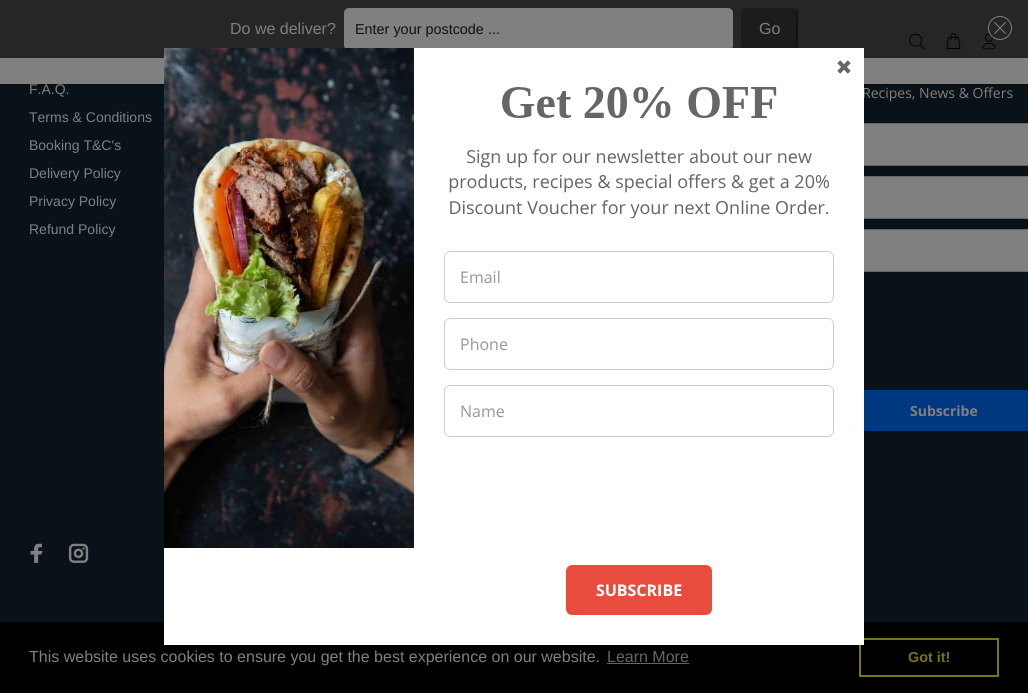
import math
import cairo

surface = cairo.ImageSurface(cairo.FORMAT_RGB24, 1028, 693)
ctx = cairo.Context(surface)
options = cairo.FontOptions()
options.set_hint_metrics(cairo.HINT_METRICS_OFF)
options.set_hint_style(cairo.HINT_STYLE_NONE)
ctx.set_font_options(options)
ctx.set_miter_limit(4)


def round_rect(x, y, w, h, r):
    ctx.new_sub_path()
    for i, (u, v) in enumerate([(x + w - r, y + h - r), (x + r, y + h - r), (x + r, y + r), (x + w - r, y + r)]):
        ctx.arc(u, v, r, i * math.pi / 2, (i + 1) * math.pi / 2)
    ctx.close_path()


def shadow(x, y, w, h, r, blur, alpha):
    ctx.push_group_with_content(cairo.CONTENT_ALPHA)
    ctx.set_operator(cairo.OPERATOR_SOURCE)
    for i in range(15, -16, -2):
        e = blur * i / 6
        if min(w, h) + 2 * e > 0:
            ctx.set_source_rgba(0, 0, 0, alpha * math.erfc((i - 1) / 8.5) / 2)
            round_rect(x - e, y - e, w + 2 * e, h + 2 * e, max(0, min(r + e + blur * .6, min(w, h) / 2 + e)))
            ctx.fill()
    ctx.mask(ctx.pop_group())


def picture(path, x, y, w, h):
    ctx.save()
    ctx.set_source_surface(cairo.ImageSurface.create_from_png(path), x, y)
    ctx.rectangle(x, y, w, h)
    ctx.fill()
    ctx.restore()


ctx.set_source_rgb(0.039, 0.071, 0.098)
ctx.paint()
ctx.set_source_rgb(0, 0, 0)
shadow(0, 0, 1028, 84, 0, 4, 0.3)
ctx.set_source_rgb(0.502, 0.502, 0.502)
ctx.rectangle(0, 0, 1028, 84)
ctx.fill()
picture("img1.png", 909, 33, 16, 17)
picture("img2.png", 946, 33, 15, 17)
picture("img3.png", 982, 33, 14, 17)
ctx.set_source_rgba(0, 0, 0, 0.7)
ctx.rectangle(0, 0, 1028, 58)
ctx.fill()
ctx.select_font_face("Liberation Sans")
ctx.set_font_size(16)
ctx.set_source_rgb(0.502, 0.502, 0.502)
ctx.move_to(230, 34)
ctx.show_text("Do we deliver?")
round_rect(344.5, 8.5, 388, 41, 4.5)
ctx.fill_preserve()
ctx.set_line_width(1)
ctx.stroke()
ctx.set_font_size(14.4)
ctx.set_source_rgb(0.039, 0.071, 0.098)
ctx.move_to(355, 34)
ctx.show_text("Enter your postcode ...")
ctx.set_source_rgb(0.11, 0.11, 0.11)
round_rect(741, 8, 57, 42, 5)
ctx.fill()
ctx.new_path()
ctx.move_to(796, 10)
ctx.curve_to(798, 12, 797, 16, 797, 18.5)
ctx.line_to(797, 39.5)
ctx.curve_to(797, 50.5, 796, 49, 785, 49)
ctx.line_to(754, 49)
ctx.curve_to(752, 49, 745.5, 50, 743, 48)
ctx.set_source_rgb(0.075, 0.075, 0.075)
ctx.set_line_width(2)
ctx.stroke()
ctx.new_path()
ctx.move_to(743, 48)
ctx.curve_to(741, 46, 742, 42, 742, 39.5)
ctx.line_to(742, 18.5)
ctx.curve_to(742, 7.5, 743, 9, 754, 9)
ctx.line_to(785, 9)
ctx.curve_to(787, 9, 793.5, 8, 796, 10)
ctx.set_source_rgb(0.11, 0.11, 0.11)
ctx.stroke()
ctx.set_font_size(16)
ctx.set_source_rgb(0.502, 0.502, 0.502)
ctx.move_to(759, 34)
ctx.show_text("Go")
picture("img4.png", 988, 16, 24, 24)
ctx.select_font_face("Open Sans")
ctx.set_font_size(14)
ctx.move_to(862, 98)
ctx.show_text("Recipes, News & Offers")
ctx.rectangle(864, 124, 164, 41)
ctx.fill()
ctx.rectangle(792.5, 123.5, 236, 42)
ctx.set_source_rgb(0.4, 0.4, 0.4)
ctx.set_line_width(1)
ctx.stroke()
ctx.set_source_rgb(0.502, 0.502, 0.502)
ctx.rectangle(864, 177, 164, 41)
ctx.fill()
ctx.rectangle(792.5, 176.5, 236, 42)
ctx.set_source_rgb(0.4, 0.4, 0.4)
ctx.stroke()
ctx.set_source_rgb(0.502, 0.502, 0.502)
ctx.rectangle(864, 230, 164, 41)
ctx.fill()
ctx.rectangle(792.5, 229.5, 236, 42)
ctx.set_source_rgb(0.4, 0.4, 0.4)
ctx.stroke()
ctx.set_source_rgb(0, 0, 0)
ctx.rectangle(0, 622, 1028, 71)
ctx.fill()
ctx.rectangle(860, 639, 138, 37)
ctx.set_source_rgb(0.486, 0.455, 0.055)
ctx.set_line_width(2)
ctx.stroke()
picture("img5.png", 164, 48, 700, 597)
ctx.select_font_face("Liberation Sans")
ctx.set_source_rgb(0.502, 0.502, 0.502)
ctx.move_to(29, 94)
ctx.show_text("F.A.Q.")
ctx.move_to(29, 122)
ctx.show_text("Terms & Conditions")
ctx.move_to(29, 150)
ctx.show_text("Booking T&C's")
ctx.move_to(29, 178)
ctx.show_text("Delivery Policy")
ctx.move_to(29, 206)
ctx.show_text("Privacy Policy")
ctx.move_to(29, 234)
ctx.show_text("Refund Policy")
ctx.set_source_rgb(0, 0.22, 0.502)
ctx.rectangle(864, 390, 164, 41)
ctx.fill()
ctx.select_font_face("Open Sans", cairo.FONT_SLANT_NORMAL, cairo.FONT_WEIGHT_BOLD)
ctx.set_source_rgb(0.502, 0.502, 0.502)
ctx.move_to(910, 416)
ctx.show_text("Subscribe")
picture("img6.png", 30, 543, 13, 20)
picture("img7.png", 68, 543, 21, 20)
ctx.select_font_face("Liberation Sans")
ctx.set_font_size(16)
ctx.move_to(29, 662)
ctx.show_text("This website uses cookies to ensure you get the best experience on our website.")
ctx.set_source_rgb(0.4, 0.4, 0.4)
ctx.move_to(607, 662)
ctx.show_text("Learn More")
ctx.rectangle(607, 663, 82, 1)
ctx.fill()
ctx.select_font_face("Liberation Sans", cairo.FONT_SLANT_NORMAL, cairo.FONT_WEIGHT_BOLD)
ctx.set_font_size(14.4)
ctx.set_source_rgb(0.486, 0.455, 0.055)
ctx.move_to(908, 662)
ctx.show_text("Got it!")
surface.write_to_png("page.png")
